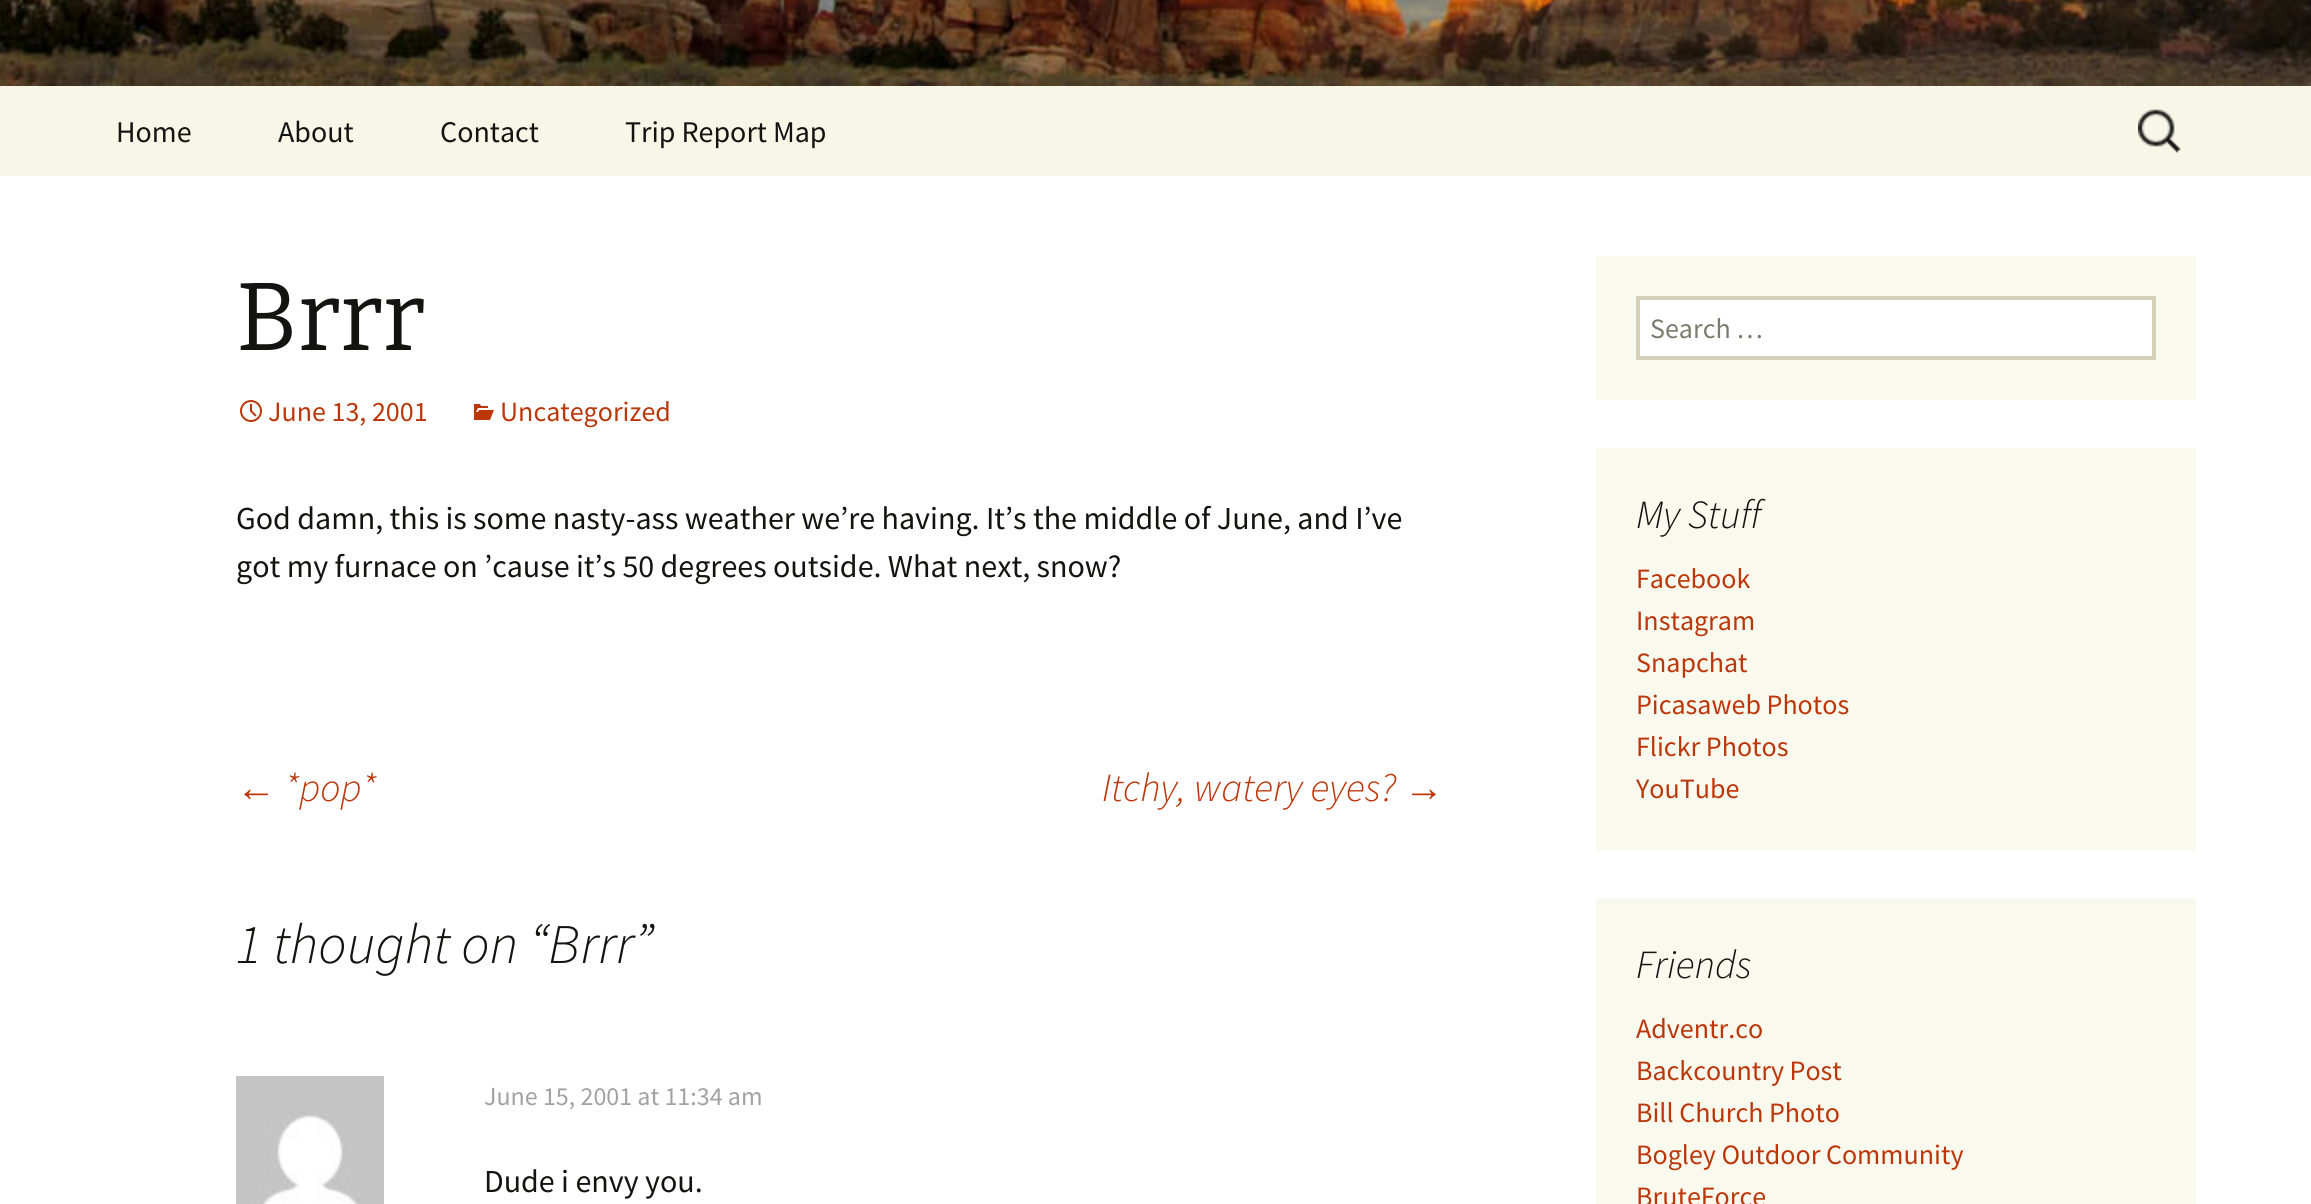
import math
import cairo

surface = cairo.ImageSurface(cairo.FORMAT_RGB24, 2311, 1204)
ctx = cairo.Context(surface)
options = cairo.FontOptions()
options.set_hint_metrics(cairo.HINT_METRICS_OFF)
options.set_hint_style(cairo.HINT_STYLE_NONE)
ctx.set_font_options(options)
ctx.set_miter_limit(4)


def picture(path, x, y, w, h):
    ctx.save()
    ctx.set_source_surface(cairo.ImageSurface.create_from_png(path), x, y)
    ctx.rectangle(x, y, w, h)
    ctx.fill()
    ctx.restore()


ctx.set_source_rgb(1, 1, 1)
ctx.paint()
picture("img1.png", 0, 0, 2311, 86)
ctx.set_source_rgb(0.969, 0.961, 0.906)
ctx.rectangle(0, 86, 2311, 90)
ctx.fill()
ctx.select_font_face("Source Sans Pro")
ctx.set_font_size(30)
ctx.set_source_rgb(0.078, 0.078, 0.071)
ctx.move_to(116, 142)
ctx.show_text("Home")
ctx.move_to(278, 142)
ctx.show_text("About")
ctx.move_to(440, 142)
ctx.show_text("Contact")
ctx.move_to(625, 142)
ctx.show_text("Trip Report Map")
picture("img2.png", 2138, 109, 43, 44)
ctx.select_font_face("Bitter")
ctx.set_font_size(96)
ctx.move_to(236, 350)
ctx.show_text("Brrr")
picture("img3.png", 240, 400, 22, 22)
ctx.select_font_face("Source Sans Pro")
ctx.set_font_size(28)
ctx.set_source_rgb(0.737, 0.212, 0.039)
ctx.move_to(268, 421)
ctx.show_text("June 13, 2001")
picture("img4.png", 474, 404, 20, 16)
ctx.move_to(500, 421)
ctx.show_text("Uncategorized")
ctx.set_font_size(32)
ctx.set_source_rgb(0.078, 0.078, 0.071)
ctx.move_to(236, 529)
ctx.show_text("God damn, this is some nasty-ass weather we’re having. It’s the middle of June, and I’ve")
ctx.move_to(236, 577)
ctx.show_text("got my furnace on ’cause it’s 50 degrees outside. What next, snow?")
ctx.select_font_face("Liberation Sans", cairo.FONT_SLANT_ITALIC)
ctx.set_font_size(40)
ctx.set_source_rgb(0.737, 0.212, 0.039)
ctx.move_to(236, 801)
ctx.show_text("←")
ctx.select_font_face("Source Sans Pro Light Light", cairo.FONT_SLANT_ITALIC)
ctx.move_to(284, 801)
ctx.show_text("*pop*")
ctx.move_to(1102, 801)
ctx.show_text("Itchy, watery eyes?")
ctx.select_font_face("Liberation Sans", cairo.FONT_SLANT_ITALIC)
ctx.move_to(1404, 801)
ctx.show_text("→")
ctx.select_font_face("Source Sans Pro Light Light", cairo.FONT_SLANT_ITALIC)
ctx.set_font_size(56)
ctx.set_source_rgb(0.078, 0.078, 0.071)
ctx.move_to(236, 963)
ctx.show_text("1 thought on “Brrr”")
picture("img5.png", 236, 1076, 148, 128)
ctx.select_font_face("Source Sans Pro")
ctx.set_font_size(26)
ctx.set_source_rgb(0.635, 0.635, 0.635)
ctx.move_to(484, 1105)
ctx.show_text("June 15, 2001 at 11:34 am")
ctx.set_font_size(32)
ctx.set_source_rgb(0.078, 0.078, 0.071)
ctx.move_to(484, 1192)
ctx.show_text("Dude i envy you.")
ctx.set_source_rgb(0.976, 0.973, 0.933)
ctx.rectangle(1596, 256, 600, 144)
ctx.fill()
ctx.set_source_rgb(1, 1, 1)
ctx.rectangle(1638, 298, 516, 60)
ctx.fill_preserve()
ctx.set_source_rgb(0.831, 0.816, 0.729)
ctx.set_line_width(4)
ctx.stroke()
ctx.set_font_size(28)
ctx.set_source_rgb(0.49, 0.482, 0.427)
ctx.move_to(1650, 338)
ctx.show_text("Search …")
ctx.set_source_rgb(0.98, 0.973, 0.933)
ctx.rectangle(1596, 448, 600, 402)
ctx.fill()
ctx.select_font_face("Source Sans Pro Light Light", cairo.FONT_SLANT_ITALIC)
ctx.set_font_size(40)
ctx.set_source_rgb(0.078, 0.078, 0.071)
ctx.move_to(1636, 528)
ctx.show_text("My Stuff")
ctx.select_font_face("Source Sans Pro")
ctx.set_font_size(28)
ctx.set_source_rgb(0.737, 0.212, 0.039)
ctx.move_to(1636, 588)
ctx.show_text("Facebook")
ctx.move_to(1636, 630)
ctx.show_text("Instagram")
ctx.move_to(1636, 672)
ctx.show_text("Snapchat")
ctx.move_to(1636, 714)
ctx.show_text("Picasaweb Photos")
ctx.move_to(1636, 756)
ctx.show_text("Flickr Photos")
ctx.move_to(1636, 798)
ctx.show_text("YouTube")
ctx.set_source_rgb(0.98, 0.973, 0.933)
ctx.rectangle(1596, 898, 600, 306)
ctx.fill()
ctx.select_font_face("Source Sans Pro Light Light", cairo.FONT_SLANT_ITALIC)
ctx.set_font_size(40)
ctx.set_source_rgb(0.078, 0.078, 0.071)
ctx.move_to(1636, 978)
ctx.show_text("Friends")
ctx.select_font_face("Source Sans Pro")
ctx.set_font_size(28)
ctx.set_source_rgb(0.737, 0.212, 0.039)
ctx.move_to(1636, 1038)
ctx.show_text("Adventr.co")
ctx.move_to(1636, 1080)
ctx.show_text("Backcountry Post")
ctx.move_to(1636, 1122)
ctx.show_text("Bill Church Photo")
ctx.move_to(1636, 1164)
ctx.show_text("Bogley Outdoor Community")
ctx.move_to(1636, 1206)
ctx.show_text("BruteForce")
surface.write_to_png("page.png")
